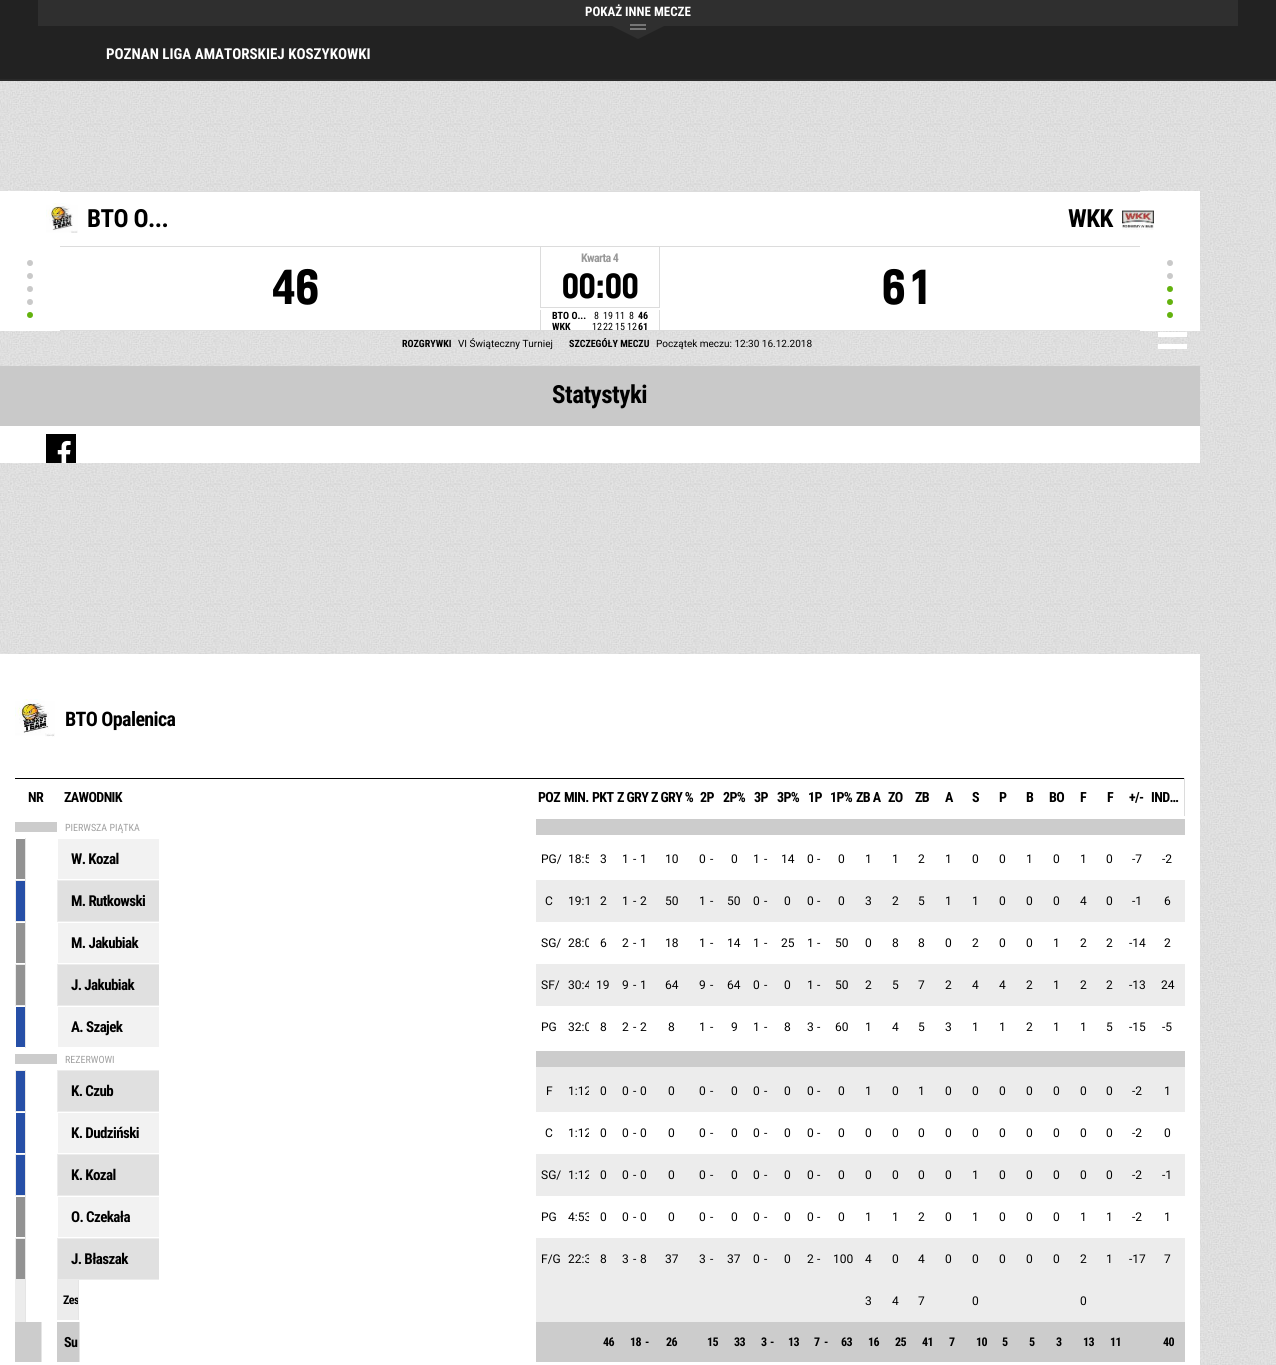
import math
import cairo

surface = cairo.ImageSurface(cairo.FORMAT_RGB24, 1276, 1365)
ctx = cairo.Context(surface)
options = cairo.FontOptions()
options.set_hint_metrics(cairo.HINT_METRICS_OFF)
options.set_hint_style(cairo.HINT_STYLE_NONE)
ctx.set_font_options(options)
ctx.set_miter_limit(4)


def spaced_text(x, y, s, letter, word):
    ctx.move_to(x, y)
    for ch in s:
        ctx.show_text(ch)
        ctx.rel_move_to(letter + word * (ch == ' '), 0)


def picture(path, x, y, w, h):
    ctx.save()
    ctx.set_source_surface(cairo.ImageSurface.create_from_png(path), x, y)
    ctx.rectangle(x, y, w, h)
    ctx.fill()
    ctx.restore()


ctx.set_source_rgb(1, 1, 1)
ctx.paint()
picture("img1.png", 0, 81, 1276, 1284)
ctx.set_source_rgb(0.133, 0.133, 0.133)
ctx.rectangle(0, 0, 1276, 79)
ctx.fill()
ctx.set_source_rgb(0.165, 0.165, 0.165)
ctx.rectangle(0, 79, 1276, 2)
ctx.fill()
ctx.set_source_rgb(0.184, 0.184, 0.184)
ctx.rectangle(38, 0, 1200, 26)
ctx.fill()
ctx.select_font_face("Roboto Condensed", cairo.FONT_SLANT_NORMAL, cairo.FONT_WEIGHT_BOLD)
ctx.set_font_size(13)
ctx.set_source_rgb(1, 1, 1)
ctx.move_to(585, 16)
ctx.show_text("POKAŻ INNE MECZE")
ctx.set_source_rgb(0.184, 0.184, 0.184)
ctx.new_path()
ctx.move_to(598, 19)
ctx.line_to(678, 19)
ctx.line_to(638, 39)
ctx.close_path()
ctx.fill()
ctx.set_source_rgb(0.459, 0.459, 0.459)
ctx.rectangle(630, 24, 16, 2)
ctx.fill()
ctx.rectangle(630, 28, 16, 2)
ctx.fill()
ctx.set_font_size(15)
ctx.set_source_rgb(1, 1, 1)
ctx.move_to(106, 59)
ctx.show_text("POZNAN LIGA AMATORSKIEJ KOSZYKOWKI")
ctx.rectangle(0, 191, 1200, 140)
ctx.fill()
ctx.set_source_rgb(0.863, 0.863, 0.863)
ctx.rectangle(60, 191, 1080, 1)
ctx.fill()
picture("img2.png", 46, 203, 32, 30)
ctx.set_font_size(25)
ctx.set_source_rgb(0, 0, 0)
spaced_text(87, 227, "BTO O...", -0.5, 0)
ctx.set_source_rgb(0.788, 0.788, 0.788)
ctx.new_path()
ctx.arc(30, 263, 3, 0, 2 * math.pi)
ctx.fill()
ctx.arc(30, 276, 3, 0, 2 * math.pi)
ctx.fill()
ctx.arc(30, 289, 3, 0, 2 * math.pi)
ctx.fill()
ctx.arc(30, 302, 3, 0, 2 * math.pi)
ctx.fill()
ctx.set_source_rgb(0.388, 0.698, 0.055)
ctx.arc(30, 315, 3, 0, 2 * math.pi)
ctx.fill()
ctx.select_font_face("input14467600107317")
ctx.set_font_size(48)
ctx.set_source_rgb(0, 0, 0)
ctx.move_to(272, 304)
ctx.show_text("46")
ctx.set_source_rgb(0.863, 0.863, 0.863)
ctx.rectangle(60, 246, 1080, 1)
ctx.fill()
ctx.rectangle(60, 330, 1080, 1)
ctx.fill()
ctx.rectangle(659, 247, 1, 61)
ctx.fill()
ctx.rectangle(540, 247, 1, 19)
ctx.fill()
ctx.select_font_face("Roboto Condensed", cairo.FONT_SLANT_NORMAL, cairo.FONT_WEIGHT_BOLD)
ctx.set_font_size(12)
ctx.set_source_rgb(0.6, 0.6, 0.6)
spaced_text(581, 262, "Kwarta 4", -0.6, 0)
ctx.set_source_rgb(0.863, 0.863, 0.863)
ctx.rectangle(540, 307, 120, 1)
ctx.fill()
ctx.rectangle(540, 265, 1, 43)
ctx.fill()
ctx.select_font_face("input14467600107317")
ctx.set_font_size(34)
ctx.set_source_rgb(0, 0, 0)
ctx.move_to(562, 298)
ctx.show_text("00:00")
ctx.set_source_rgb(0.863, 0.863, 0.863)
ctx.rectangle(659, 310, 1, 21)
ctx.fill()
ctx.rectangle(540, 310, 1, 21)
ctx.fill()
ctx.select_font_face("Roboto Condensed", cairo.FONT_SLANT_NORMAL, cairo.FONT_WEIGHT_BOLD)
ctx.set_font_size(10)
ctx.set_source_rgb(0, 0, 0)
ctx.move_to(552, 319)
ctx.show_text("BTO O...")
ctx.select_font_face("Roboto Condensed")
ctx.move_to(594, 319)
ctx.show_text("8")
ctx.move_to(603, 319)
ctx.show_text("19")
ctx.move_to(615, 319)
ctx.show_text("11")
ctx.move_to(629, 319)
ctx.show_text("8")
ctx.select_font_face("Roboto Condensed", cairo.FONT_SLANT_NORMAL, cairo.FONT_WEIGHT_BOLD)
ctx.move_to(638, 319)
ctx.show_text("46")
ctx.move_to(552, 330)
ctx.show_text("WKK")
ctx.select_font_face("Roboto Condensed")
ctx.move_to(592, 330)
ctx.show_text("12")
ctx.move_to(603, 330)
ctx.show_text("22")
ctx.move_to(615, 330)
ctx.show_text("15")
ctx.move_to(627, 330)
ctx.show_text("12")
ctx.select_font_face("Roboto Condensed", cairo.FONT_SLANT_NORMAL, cairo.FONT_WEIGHT_BOLD)
ctx.move_to(638, 330)
ctx.show_text("61")
ctx.set_font_size(25)
spaced_text(1068, 227, "WKK", -0.5, 0)
picture("img3.png", 1122, 210, 32, 20)
ctx.select_font_face("input14467600107317")
ctx.set_font_size(48)
ctx.move_to(882, 304)
ctx.show_text("61")
ctx.set_source_rgb(0.788, 0.788, 0.788)
ctx.new_path()
ctx.arc(1170, 263, 3, 0, 2 * math.pi)
ctx.fill()
ctx.arc(1170, 276, 3, 0, 2 * math.pi)
ctx.fill()
ctx.set_source_rgb(0.388, 0.698, 0.055)
ctx.arc(1170, 289, 3, 0, 2 * math.pi)
ctx.fill()
ctx.arc(1170, 302, 3, 0, 2 * math.pi)
ctx.fill()
ctx.arc(1170, 315, 3, 0, 2 * math.pi)
ctx.fill()
ctx.select_font_face("Roboto Condensed", cairo.FONT_SLANT_NORMAL, cairo.FONT_WEIGHT_BOLD)
ctx.set_font_size(10)
ctx.set_source_rgb(0, 0, 0)
ctx.move_to(402, 347)
ctx.show_text("ROZGRYWKI")
ctx.select_font_face("Roboto")
ctx.move_to(458, 347)
ctx.show_text("VI Świąteczny Turniej")
ctx.select_font_face("Roboto Condensed", cairo.FONT_SLANT_NORMAL, cairo.FONT_WEIGHT_BOLD)
ctx.move_to(569, 347)
ctx.show_text("SZCZEGÓŁY MECZU")
ctx.select_font_face("Roboto")
ctx.move_to(656, 347)
ctx.show_text("Początek meczu: 12:30 16.12.2018")
ctx.set_source_rgb(0.788, 0.788, 0.788)
ctx.rectangle(0, 366, 1200, 60)
ctx.fill()
ctx.set_source_rgb(1, 1, 1)
ctx.rectangle(1158, 332, 29, 5)
ctx.fill()
ctx.rectangle(1158, 344, 29, 5)
ctx.fill()
ctx.select_font_face("Roboto Condensed", cairo.FONT_SLANT_NORMAL, cairo.FONT_WEIGHT_BOLD)
ctx.set_font_size(25)
ctx.set_source_rgb(0, 0, 0)
spaced_text(552, 403, "Statystyki", -0.5, 0)
ctx.set_source_rgb(1, 1, 1)
ctx.rectangle(0, 426, 1200, 37)
ctx.fill()
ctx.set_source_rgb(0, 0, 0)
ctx.rectangle(46, 434, 30, 5)
ctx.fill()
ctx.rectangle(74, 434, 2, 29)
ctx.fill()
ctx.rectangle(46, 434, 2, 29)
ctx.fill()
picture("img4.png", 48, 439, 26, 24)
ctx.set_source_rgb(1, 1, 1)
ctx.rectangle(0, 654, 1200, 711)
ctx.fill()
picture("img5.png", 15, 699, 40, 38)
ctx.save()
ctx.rectangle(65, 699, 110, 40)
ctx.clip()
ctx.set_font_size(20)
ctx.set_source_rgb(0, 0, 0)
spaced_text(65, 726, "BTO Opalenica", -0.6, 0)
ctx.restore()
ctx.set_source_rgb(0, 0, 0)
ctx.rectangle(161, 778, 1024, 1)
ctx.fill()
ctx.rectangle(15, 778, 148, 1)
ctx.fill()
ctx.set_font_size(14)
spaced_text(28, 802, "NR", -0.6, 0)
spaced_text(64, 802, "ZAWODNIK", -0.6, 0)
spaced_text(538, 802, "POZ", -0.6, 0)
spaced_text(564, 802, "MIN.", -0.6, 0)
spaced_text(592, 802, "PKT", -0.6, 0)
spaced_text(617, 802, "Z GRY", -0.6, 0)
spaced_text(651, 802, "Z GRY %", -0.6, 0)
spaced_text(700, 802, "2P", -0.6, 0)
spaced_text(723, 802, "2P%", -0.6, 0)
spaced_text(754, 802, "3P", -0.6, 0)
spaced_text(777, 802, "3P%", -0.6, 0)
spaced_text(808, 802, "1P", -0.6, 0)
spaced_text(830, 802, "1P%", -0.6, 0)
spaced_text(856, 802, "ZB A", -0.6, 0)
spaced_text(888, 802, "ZO", -0.6, 0)
spaced_text(915, 802, "ZB", -0.6, 0)
spaced_text(945, 802, "A", -0.6, 0)
spaced_text(972, 802, "S", -0.6, 0)
spaced_text(999, 802, "P", -0.6, 0)
spaced_text(1026, 802, "B", -0.6, 0)
spaced_text(1049, 802, "BO", -0.6, 0)
spaced_text(1080, 802, "F", -0.6, 0)
spaced_text(1107, 802, "F", -0.6, 0)
spaced_text(1129, 802, "+/-", -0.6, 0)
ctx.set_source_rgb(0.863, 0.863, 0.863)
ctx.rectangle(1184, 778, 1, 41)
ctx.fill()
ctx.set_source_rgb(0, 0, 0)
spaced_text(1151, 802, "IND…", -0.6, 0)
ctx.set_source_rgb(0.8, 0.8, 0.8)
ctx.rectangle(15, 822, 42, 10)
ctx.fill()
ctx.set_source_rgb(1, 1, 1)
ctx.rectangle(1184, 816, 1, 3)
ctx.fill()
ctx.set_source_rgb(0.8, 0.8, 0.8)
ctx.rectangle(536, 819, 649, 16)
ctx.fill()
ctx.select_font_face("Roboto Condensed")
ctx.set_font_size(10)
ctx.set_source_rgb(0.627, 0.627, 0.627)
ctx.move_to(65, 831)
ctx.show_text("PIERWSZA PIĄTKA")
ctx.set_source_rgb(0.898, 0.898, 0.898)
ctx.rectangle(25, 838, 1, 210)
ctx.fill()
ctx.set_source_rgb(0.573, 0.573, 0.573)
ctx.rectangle(16, 839, 9, 40)
ctx.fill()
ctx.set_source_rgb(0.949, 0.949, 0.949)
ctx.rectangle(58, 839, 101, 40)
ctx.fill()
ctx.select_font_face("Roboto Condensed", cairo.FONT_SLANT_NORMAL, cairo.FONT_WEIGHT_BOLD)
ctx.set_font_size(15)
ctx.set_source_rgb(0, 0, 0)
spaced_text(71, 864, "W. Kozal", -0.6, 0)
ctx.select_font_face("Roboto")
ctx.set_font_size(12)
ctx.move_to(541, 863)
ctx.show_text("PG/")
ctx.save()
ctx.rectangle(563, 835, 26, 45)
ctx.clip()
ctx.move_to(568, 863)
ctx.show_text("18:5")
ctx.restore()
ctx.move_to(600, 863)
ctx.show_text("3")
ctx.move_to(622, 863)
ctx.show_text("1")
ctx.move_to(633, 863)
ctx.show_text("-")
ctx.move_to(640, 863)
ctx.show_text("1")
ctx.move_to(665, 863)
ctx.show_text("10")
ctx.move_to(699, 863)
ctx.show_text("0")
ctx.move_to(710, 863)
ctx.show_text("-")
ctx.move_to(731, 863)
ctx.show_text("0")
ctx.move_to(753, 863)
ctx.show_text("1")
ctx.move_to(764, 863)
ctx.show_text("-")
ctx.move_to(781, 863)
ctx.show_text("14")
ctx.move_to(807, 863)
ctx.show_text("0")
ctx.move_to(817, 863)
ctx.show_text("-")
ctx.move_to(838, 863)
ctx.show_text("0")
ctx.move_to(865, 863)
ctx.show_text("1")
ctx.move_to(892, 863)
ctx.show_text("1")
ctx.move_to(918, 863)
ctx.show_text("2")
ctx.move_to(945, 863)
ctx.show_text("1")
ctx.move_to(972, 863)
ctx.show_text("0")
ctx.move_to(999, 863)
ctx.show_text("0")
ctx.move_to(1026, 863)
ctx.show_text("1")
ctx.move_to(1053, 863)
ctx.show_text("0")
ctx.move_to(1080, 863)
ctx.show_text("1")
ctx.move_to(1106, 863)
ctx.show_text("0")
ctx.move_to(1132, 863)
ctx.show_text("-7")
ctx.move_to(1162, 863)
ctx.show_text("-2")
ctx.set_source_rgb(0.925, 0.925, 0.925)
ctx.rectangle(15, 880, 10, 42)
ctx.fill()
ctx.set_source_rgb(0.149, 0.31, 0.655)
ctx.rectangle(16, 881, 9, 40)
ctx.fill()
ctx.set_source_rgb(0.925, 0.925, 0.925)
ctx.rectangle(57, 880, 102, 42)
ctx.fill()
ctx.set_source_rgb(0.878, 0.878, 0.878)
ctx.rectangle(58, 881, 101, 40)
ctx.fill()
ctx.select_font_face("Roboto Condensed", cairo.FONT_SLANT_NORMAL, cairo.FONT_WEIGHT_BOLD)
ctx.set_font_size(15)
ctx.set_source_rgb(0, 0, 0)
spaced_text(71, 906, "M. Rutkowski", -0.6, 0)
ctx.set_source_rgb(0.925, 0.925, 0.925)
ctx.rectangle(536, 880, 649, 42)
ctx.fill()
ctx.select_font_face("Roboto")
ctx.set_font_size(12)
ctx.set_source_rgb(0, 0, 0)
ctx.move_to(545, 905)
ctx.show_text("C")
ctx.move_to(568, 905)
ctx.show_text("19:1")
ctx.move_to(600, 905)
ctx.show_text("2")
ctx.move_to(622, 905)
ctx.show_text("1")
ctx.move_to(633, 905)
ctx.show_text("-")
ctx.move_to(640, 905)
ctx.show_text("2")
ctx.move_to(665, 905)
ctx.show_text("50")
ctx.move_to(699, 905)
ctx.show_text("1")
ctx.move_to(710, 905)
ctx.show_text("-")
ctx.move_to(727, 905)
ctx.show_text("50")
ctx.move_to(753, 905)
ctx.show_text("0")
ctx.move_to(764, 905)
ctx.show_text("-")
ctx.move_to(784, 905)
ctx.show_text("0")
ctx.move_to(807, 905)
ctx.show_text("0")
ctx.move_to(817, 905)
ctx.show_text("-")
ctx.move_to(838, 905)
ctx.show_text("0")
ctx.move_to(865, 905)
ctx.show_text("3")
ctx.move_to(892, 905)
ctx.show_text("2")
ctx.move_to(918, 905)
ctx.show_text("5")
ctx.move_to(945, 905)
ctx.show_text("1")
ctx.move_to(972, 905)
ctx.show_text("1")
ctx.move_to(999, 905)
ctx.show_text("0")
ctx.move_to(1026, 905)
ctx.show_text("0")
ctx.move_to(1053, 905)
ctx.show_text("0")
ctx.move_to(1080, 905)
ctx.show_text("4")
ctx.move_to(1106, 905)
ctx.show_text("0")
ctx.move_to(1132, 905)
ctx.show_text("-1")
ctx.move_to(1164, 905)
ctx.show_text("6")
ctx.set_source_rgb(0.573, 0.573, 0.573)
ctx.rectangle(16, 923, 9, 40)
ctx.fill()
ctx.set_source_rgb(0.949, 0.949, 0.949)
ctx.rectangle(58, 923, 101, 40)
ctx.fill()
ctx.select_font_face("Roboto Condensed", cairo.FONT_SLANT_NORMAL, cairo.FONT_WEIGHT_BOLD)
ctx.set_font_size(15)
ctx.set_source_rgb(0, 0, 0)
spaced_text(71, 948, "M. Jakubiak", -0.6, 0)
ctx.select_font_face("Roboto")
ctx.set_font_size(12)
ctx.move_to(541, 947)
ctx.show_text("SG/")
ctx.save()
ctx.rectangle(563, 922, 26, 42)
ctx.clip()
ctx.move_to(568, 947)
ctx.show_text("28:0")
ctx.restore()
ctx.move_to(600, 947)
ctx.show_text("6")
ctx.move_to(622, 947)
ctx.show_text("2")
ctx.move_to(633, 947)
ctx.show_text("-")
ctx.move_to(640, 947)
ctx.show_text("1")
ctx.move_to(665, 947)
ctx.show_text("18")
ctx.move_to(699, 947)
ctx.show_text("1")
ctx.move_to(710, 947)
ctx.show_text("-")
ctx.move_to(727, 947)
ctx.show_text("14")
ctx.move_to(753, 947)
ctx.show_text("1")
ctx.move_to(764, 947)
ctx.show_text("-")
ctx.move_to(781, 947)
ctx.show_text("25")
ctx.move_to(807, 947)
ctx.show_text("1")
ctx.move_to(817, 947)
ctx.show_text("-")
ctx.move_to(835, 947)
ctx.show_text("50")
ctx.move_to(865, 947)
ctx.show_text("0")
ctx.move_to(892, 947)
ctx.show_text("8")
ctx.move_to(918, 947)
ctx.show_text("8")
ctx.move_to(945, 947)
ctx.show_text("0")
ctx.move_to(972, 947)
ctx.show_text("2")
ctx.move_to(999, 947)
ctx.show_text("0")
ctx.move_to(1026, 947)
ctx.show_text("0")
ctx.move_to(1053, 947)
ctx.show_text("1")
ctx.move_to(1080, 947)
ctx.show_text("2")
ctx.move_to(1106, 947)
ctx.show_text("2")
ctx.move_to(1129, 947)
ctx.show_text("-14")
ctx.move_to(1164, 947)
ctx.show_text("2")
ctx.set_source_rgb(0.925, 0.925, 0.925)
ctx.rectangle(15, 964, 10, 42)
ctx.fill()
ctx.set_source_rgb(0.573, 0.573, 0.573)
ctx.rectangle(16, 965, 9, 40)
ctx.fill()
ctx.set_source_rgb(0.925, 0.925, 0.925)
ctx.rectangle(57, 964, 102, 42)
ctx.fill()
ctx.set_source_rgb(0.878, 0.878, 0.878)
ctx.rectangle(58, 965, 101, 40)
ctx.fill()
ctx.select_font_face("Roboto Condensed", cairo.FONT_SLANT_NORMAL, cairo.FONT_WEIGHT_BOLD)
ctx.set_font_size(15)
ctx.set_source_rgb(0, 0, 0)
spaced_text(71, 990, "J. Jakubiak", -0.6, 0)
ctx.set_source_rgb(0.925, 0.925, 0.925)
ctx.rectangle(536, 964, 649, 42)
ctx.fill()
ctx.select_font_face("Roboto")
ctx.set_font_size(12)
ctx.set_source_rgb(0, 0, 0)
ctx.move_to(541, 989)
ctx.show_text("SF/")
ctx.save()
ctx.rectangle(563, 964, 26, 42)
ctx.clip()
ctx.move_to(568, 989)
ctx.show_text("30:4")
ctx.restore()
ctx.move_to(596, 989)
ctx.show_text("19")
ctx.move_to(622, 989)
ctx.show_text("9")
ctx.move_to(633, 989)
ctx.show_text("-")
ctx.move_to(640, 989)
ctx.show_text("1")
ctx.move_to(665, 989)
ctx.show_text("64")
ctx.move_to(699, 989)
ctx.show_text("9")
ctx.move_to(710, 989)
ctx.show_text("-")
ctx.move_to(727, 989)
ctx.show_text("64")
ctx.move_to(753, 989)
ctx.show_text("0")
ctx.move_to(764, 989)
ctx.show_text("-")
ctx.move_to(784, 989)
ctx.show_text("0")
ctx.move_to(807, 989)
ctx.show_text("1")
ctx.move_to(817, 989)
ctx.show_text("-")
ctx.move_to(835, 989)
ctx.show_text("50")
ctx.move_to(865, 989)
ctx.show_text("2")
ctx.move_to(892, 989)
ctx.show_text("5")
ctx.move_to(918, 989)
ctx.show_text("7")
ctx.move_to(945, 989)
ctx.show_text("2")
ctx.move_to(972, 989)
ctx.show_text("4")
ctx.move_to(999, 989)
ctx.show_text("4")
ctx.move_to(1026, 989)
ctx.show_text("2")
ctx.move_to(1053, 989)
ctx.show_text("1")
ctx.move_to(1080, 989)
ctx.show_text("2")
ctx.move_to(1106, 989)
ctx.show_text("2")
ctx.move_to(1129, 989)
ctx.show_text("-13")
ctx.move_to(1161, 989)
ctx.show_text("24")
ctx.set_source_rgb(0.149, 0.31, 0.655)
ctx.rectangle(16, 1007, 9, 40)
ctx.fill()
ctx.set_source_rgb(0.949, 0.949, 0.949)
ctx.rectangle(58, 1007, 101, 40)
ctx.fill()
ctx.select_font_face("Roboto Condensed", cairo.FONT_SLANT_NORMAL, cairo.FONT_WEIGHT_BOLD)
ctx.set_font_size(15)
ctx.set_source_rgb(0, 0, 0)
spaced_text(71, 1032, "A. Szajek", -0.6, 0)
ctx.select_font_face("Roboto")
ctx.set_font_size(12)
ctx.move_to(541, 1031)
ctx.show_text("PG")
ctx.save()
ctx.rectangle(563, 1006, 26, 45)
ctx.clip()
ctx.move_to(568, 1031)
ctx.show_text("32:0")
ctx.restore()
ctx.move_to(600, 1031)
ctx.show_text("8")
ctx.move_to(622, 1031)
ctx.show_text("2")
ctx.move_to(633, 1031)
ctx.show_text("-")
ctx.move_to(640, 1031)
ctx.show_text("2")
ctx.move_to(668, 1031)
ctx.show_text("8")
ctx.move_to(699, 1031)
ctx.show_text("1")
ctx.move_to(710, 1031)
ctx.show_text("-")
ctx.move_to(731, 1031)
ctx.show_text("9")
ctx.move_to(753, 1031)
ctx.show_text("1")
ctx.move_to(764, 1031)
ctx.show_text("-")
ctx.move_to(784, 1031)
ctx.show_text("8")
ctx.move_to(807, 1031)
ctx.show_text("3")
ctx.move_to(817, 1031)
ctx.show_text("-")
ctx.move_to(835, 1031)
ctx.show_text("60")
ctx.move_to(865, 1031)
ctx.show_text("1")
ctx.move_to(892, 1031)
ctx.show_text("4")
ctx.move_to(918, 1031)
ctx.show_text("5")
ctx.move_to(945, 1031)
ctx.show_text("3")
ctx.move_to(972, 1031)
ctx.show_text("1")
ctx.move_to(999, 1031)
ctx.show_text("1")
ctx.move_to(1026, 1031)
ctx.show_text("2")
ctx.move_to(1053, 1031)
ctx.show_text("1")
ctx.move_to(1080, 1031)
ctx.show_text("1")
ctx.move_to(1106, 1031)
ctx.show_text("5")
ctx.move_to(1129, 1031)
ctx.show_text("-15")
ctx.move_to(1162, 1031)
ctx.show_text("-5")
ctx.set_source_rgb(0.8, 0.8, 0.8)
ctx.rectangle(15, 1054, 42, 10)
ctx.fill()
ctx.rectangle(536, 1051, 649, 16)
ctx.fill()
ctx.select_font_face("Roboto Condensed")
ctx.set_font_size(10)
ctx.set_source_rgb(0.627, 0.627, 0.627)
ctx.move_to(65, 1063)
ctx.show_text("REZERWOWI")
ctx.set_source_rgb(0.925, 0.925, 0.925)
ctx.rectangle(15, 1070, 10, 42)
ctx.fill()
ctx.set_source_rgb(0.898, 0.898, 0.898)
ctx.rectangle(25, 1070, 1, 252)
ctx.fill()
ctx.set_source_rgb(0.149, 0.31, 0.655)
ctx.rectangle(16, 1071, 9, 40)
ctx.fill()
ctx.set_source_rgb(0.925, 0.925, 0.925)
ctx.rectangle(57, 1070, 102, 42)
ctx.fill()
ctx.set_source_rgb(0.878, 0.878, 0.878)
ctx.rectangle(58, 1071, 101, 40)
ctx.fill()
ctx.select_font_face("Roboto Condensed", cairo.FONT_SLANT_NORMAL, cairo.FONT_WEIGHT_BOLD)
ctx.set_font_size(15)
ctx.set_source_rgb(0, 0, 0)
spaced_text(71, 1096, "K. Czub", -0.6, 0)
ctx.set_source_rgb(0.925, 0.925, 0.925)
ctx.rectangle(536, 1067, 649, 45)
ctx.fill()
ctx.select_font_face("Roboto")
ctx.set_font_size(12)
ctx.set_source_rgb(0, 0, 0)
ctx.move_to(546, 1095)
ctx.show_text("F")
ctx.save()
ctx.rectangle(563, 1067, 26, 45)
ctx.clip()
ctx.move_to(568, 1095)
ctx.show_text("1:12")
ctx.restore()
ctx.move_to(600, 1095)
ctx.show_text("0")
ctx.move_to(622, 1095)
ctx.show_text("0")
ctx.move_to(633, 1095)
ctx.show_text("-")
ctx.move_to(640, 1095)
ctx.show_text("0")
ctx.move_to(668, 1095)
ctx.show_text("0")
ctx.move_to(699, 1095)
ctx.show_text("0")
ctx.move_to(710, 1095)
ctx.show_text("-")
ctx.move_to(731, 1095)
ctx.show_text("0")
ctx.move_to(753, 1095)
ctx.show_text("0")
ctx.move_to(764, 1095)
ctx.show_text("-")
ctx.move_to(784, 1095)
ctx.show_text("0")
ctx.move_to(807, 1095)
ctx.show_text("0")
ctx.move_to(817, 1095)
ctx.show_text("-")
ctx.move_to(838, 1095)
ctx.show_text("0")
ctx.move_to(865, 1095)
ctx.show_text("1")
ctx.move_to(892, 1095)
ctx.show_text("0")
ctx.move_to(918, 1095)
ctx.show_text("1")
ctx.move_to(945, 1095)
ctx.show_text("0")
ctx.move_to(972, 1095)
ctx.show_text("0")
ctx.move_to(999, 1095)
ctx.show_text("0")
ctx.move_to(1026, 1095)
ctx.show_text("0")
ctx.move_to(1053, 1095)
ctx.show_text("0")
ctx.move_to(1080, 1095)
ctx.show_text("0")
ctx.move_to(1106, 1095)
ctx.show_text("0")
ctx.move_to(1132, 1095)
ctx.show_text("-2")
ctx.move_to(1164, 1095)
ctx.show_text("1")
ctx.set_source_rgb(0.149, 0.31, 0.655)
ctx.rectangle(16, 1113, 9, 40)
ctx.fill()
ctx.set_source_rgb(0.949, 0.949, 0.949)
ctx.rectangle(58, 1113, 101, 40)
ctx.fill()
ctx.select_font_face("Roboto Condensed", cairo.FONT_SLANT_NORMAL, cairo.FONT_WEIGHT_BOLD)
ctx.set_font_size(15)
ctx.set_source_rgb(0, 0, 0)
spaced_text(71, 1138, "K. Dudziński", -0.6, 0)
ctx.select_font_face("Roboto")
ctx.set_font_size(12)
ctx.move_to(545, 1137)
ctx.show_text("C")
ctx.save()
ctx.rectangle(563, 1112, 26, 42)
ctx.clip()
ctx.move_to(568, 1137)
ctx.show_text("1:12")
ctx.restore()
ctx.move_to(600, 1137)
ctx.show_text("0")
ctx.move_to(622, 1137)
ctx.show_text("0")
ctx.move_to(633, 1137)
ctx.show_text("-")
ctx.move_to(640, 1137)
ctx.show_text("0")
ctx.move_to(668, 1137)
ctx.show_text("0")
ctx.move_to(699, 1137)
ctx.show_text("0")
ctx.move_to(710, 1137)
ctx.show_text("-")
ctx.move_to(731, 1137)
ctx.show_text("0")
ctx.move_to(753, 1137)
ctx.show_text("0")
ctx.move_to(764, 1137)
ctx.show_text("-")
ctx.move_to(784, 1137)
ctx.show_text("0")
ctx.move_to(807, 1137)
ctx.show_text("0")
ctx.move_to(817, 1137)
ctx.show_text("-")
ctx.move_to(838, 1137)
ctx.show_text("0")
ctx.move_to(865, 1137)
ctx.show_text("0")
ctx.move_to(892, 1137)
ctx.show_text("0")
ctx.move_to(918, 1137)
ctx.show_text("0")
ctx.move_to(945, 1137)
ctx.show_text("0")
ctx.move_to(972, 1137)
ctx.show_text("0")
ctx.move_to(999, 1137)
ctx.show_text("0")
ctx.move_to(1026, 1137)
ctx.show_text("0")
ctx.move_to(1053, 1137)
ctx.show_text("0")
ctx.move_to(1080, 1137)
ctx.show_text("0")
ctx.move_to(1106, 1137)
ctx.show_text("0")
ctx.move_to(1132, 1137)
ctx.show_text("-2")
ctx.move_to(1164, 1137)
ctx.show_text("0")
ctx.set_source_rgb(0.925, 0.925, 0.925)
ctx.rectangle(15, 1154, 10, 42)
ctx.fill()
ctx.set_source_rgb(0.149, 0.31, 0.655)
ctx.rectangle(16, 1155, 9, 40)
ctx.fill()
ctx.set_source_rgb(0.925, 0.925, 0.925)
ctx.rectangle(57, 1154, 102, 42)
ctx.fill()
ctx.set_source_rgb(0.878, 0.878, 0.878)
ctx.rectangle(58, 1155, 101, 40)
ctx.fill()
ctx.select_font_face("Roboto Condensed", cairo.FONT_SLANT_NORMAL, cairo.FONT_WEIGHT_BOLD)
ctx.set_font_size(15)
ctx.set_source_rgb(0, 0, 0)
spaced_text(71, 1180, "K. Kozal", -0.6, 0)
ctx.set_source_rgb(0.925, 0.925, 0.925)
ctx.rectangle(536, 1154, 649, 42)
ctx.fill()
ctx.select_font_face("Roboto")
ctx.set_font_size(12)
ctx.set_source_rgb(0, 0, 0)
ctx.move_to(541, 1179)
ctx.show_text("SG/")
ctx.save()
ctx.rectangle(563, 1154, 26, 42)
ctx.clip()
ctx.move_to(568, 1179)
ctx.show_text("1:12")
ctx.restore()
ctx.move_to(600, 1179)
ctx.show_text("0")
ctx.move_to(622, 1179)
ctx.show_text("0")
ctx.move_to(633, 1179)
ctx.show_text("-")
ctx.move_to(640, 1179)
ctx.show_text("0")
ctx.move_to(668, 1179)
ctx.show_text("0")
ctx.move_to(699, 1179)
ctx.show_text("0")
ctx.move_to(710, 1179)
ctx.show_text("-")
ctx.move_to(731, 1179)
ctx.show_text("0")
ctx.move_to(753, 1179)
ctx.show_text("0")
ctx.move_to(764, 1179)
ctx.show_text("-")
ctx.move_to(784, 1179)
ctx.show_text("0")
ctx.move_to(807, 1179)
ctx.show_text("0")
ctx.move_to(817, 1179)
ctx.show_text("-")
ctx.move_to(838, 1179)
ctx.show_text("0")
ctx.move_to(865, 1179)
ctx.show_text("0")
ctx.move_to(892, 1179)
ctx.show_text("0")
ctx.move_to(918, 1179)
ctx.show_text("0")
ctx.move_to(945, 1179)
ctx.show_text("0")
ctx.move_to(972, 1179)
ctx.show_text("1")
ctx.move_to(999, 1179)
ctx.show_text("0")
ctx.move_to(1026, 1179)
ctx.show_text("0")
ctx.move_to(1053, 1179)
ctx.show_text("0")
ctx.move_to(1080, 1179)
ctx.show_text("0")
ctx.move_to(1106, 1179)
ctx.show_text("0")
ctx.move_to(1132, 1179)
ctx.show_text("-2")
ctx.move_to(1162, 1179)
ctx.show_text("-1")
ctx.set_source_rgb(0.573, 0.573, 0.573)
ctx.rectangle(16, 1197, 9, 40)
ctx.fill()
ctx.set_source_rgb(0.949, 0.949, 0.949)
ctx.rectangle(58, 1197, 101, 40)
ctx.fill()
ctx.select_font_face("Roboto Condensed", cairo.FONT_SLANT_NORMAL, cairo.FONT_WEIGHT_BOLD)
ctx.set_font_size(15)
ctx.set_source_rgb(0, 0, 0)
spaced_text(71, 1222, "O. Czekała", -0.6, 0)
ctx.select_font_face("Roboto")
ctx.set_font_size(12)
ctx.move_to(541, 1221)
ctx.show_text("PG")
ctx.save()
ctx.rectangle(563, 1196, 26, 42)
ctx.clip()
ctx.move_to(568, 1221)
ctx.show_text("4:53")
ctx.restore()
ctx.move_to(600, 1221)
ctx.show_text("0")
ctx.move_to(622, 1221)
ctx.show_text("0")
ctx.move_to(633, 1221)
ctx.show_text("-")
ctx.move_to(640, 1221)
ctx.show_text("0")
ctx.move_to(668, 1221)
ctx.show_text("0")
ctx.move_to(699, 1221)
ctx.show_text("0")
ctx.move_to(710, 1221)
ctx.show_text("-")
ctx.move_to(731, 1221)
ctx.show_text("0")
ctx.move_to(753, 1221)
ctx.show_text("0")
ctx.move_to(764, 1221)
ctx.show_text("-")
ctx.move_to(784, 1221)
ctx.show_text("0")
ctx.move_to(807, 1221)
ctx.show_text("0")
ctx.move_to(817, 1221)
ctx.show_text("-")
ctx.move_to(838, 1221)
ctx.show_text("0")
ctx.move_to(865, 1221)
ctx.show_text("1")
ctx.move_to(892, 1221)
ctx.show_text("1")
ctx.move_to(918, 1221)
ctx.show_text("2")
ctx.move_to(945, 1221)
ctx.show_text("0")
ctx.move_to(972, 1221)
ctx.show_text("1")
ctx.move_to(999, 1221)
ctx.show_text("0")
ctx.move_to(1026, 1221)
ctx.show_text("0")
ctx.move_to(1053, 1221)
ctx.show_text("0")
ctx.move_to(1080, 1221)
ctx.show_text("1")
ctx.move_to(1106, 1221)
ctx.show_text("1")
ctx.move_to(1132, 1221)
ctx.show_text("-2")
ctx.move_to(1164, 1221)
ctx.show_text("1")
ctx.set_source_rgb(0.925, 0.925, 0.925)
ctx.rectangle(15, 1238, 10, 84)
ctx.fill()
ctx.set_source_rgb(0.573, 0.573, 0.573)
ctx.rectangle(16, 1239, 9, 40)
ctx.fill()
ctx.set_source_rgb(0.925, 0.925, 0.925)
ctx.rectangle(57, 1238, 102, 42)
ctx.fill()
ctx.set_source_rgb(0.878, 0.878, 0.878)
ctx.rectangle(58, 1239, 101, 40)
ctx.fill()
ctx.select_font_face("Roboto Condensed", cairo.FONT_SLANT_NORMAL, cairo.FONT_WEIGHT_BOLD)
ctx.set_font_size(15)
ctx.set_source_rgb(0, 0, 0)
spaced_text(71, 1264, "J. Błaszak", -0.6, 0)
ctx.set_source_rgb(0.925, 0.925, 0.925)
ctx.rectangle(536, 1238, 649, 42)
ctx.fill()
ctx.select_font_face("Roboto")
ctx.set_font_size(12)
ctx.set_source_rgb(0, 0, 0)
ctx.move_to(541, 1263)
ctx.show_text("F/G")
ctx.save()
ctx.rectangle(563, 1238, 26, 42)
ctx.clip()
ctx.move_to(568, 1263)
ctx.show_text("22:3")
ctx.restore()
ctx.move_to(600, 1263)
ctx.show_text("8")
ctx.move_to(622, 1263)
ctx.show_text("3")
ctx.move_to(633, 1263)
ctx.show_text("-")
ctx.move_to(640, 1263)
ctx.show_text("8")
ctx.move_to(665, 1263)
ctx.show_text("37")
ctx.move_to(699, 1263)
ctx.show_text("3")
ctx.move_to(710, 1263)
ctx.show_text("-")
ctx.move_to(727, 1263)
ctx.show_text("37")
ctx.move_to(753, 1263)
ctx.show_text("0")
ctx.move_to(764, 1263)
ctx.show_text("-")
ctx.move_to(784, 1263)
ctx.show_text("0")
ctx.move_to(807, 1263)
ctx.show_text("2")
ctx.move_to(817, 1263)
ctx.show_text("-")
ctx.move_to(833, 1263)
ctx.show_text("100")
ctx.move_to(865, 1263)
ctx.show_text("4")
ctx.move_to(892, 1263)
ctx.show_text("0")
ctx.move_to(918, 1263)
ctx.show_text("4")
ctx.move_to(945, 1263)
ctx.show_text("0")
ctx.move_to(972, 1263)
ctx.show_text("0")
ctx.move_to(999, 1263)
ctx.show_text("0")
ctx.move_to(1026, 1263)
ctx.show_text("0")
ctx.move_to(1053, 1263)
ctx.show_text("0")
ctx.move_to(1080, 1263)
ctx.show_text("2")
ctx.move_to(1106, 1263)
ctx.show_text("1")
ctx.move_to(1129, 1263)
ctx.show_text("-17")
ctx.move_to(1164, 1263)
ctx.show_text("7")
ctx.set_source_rgb(0.925, 0.925, 0.925)
ctx.rectangle(57, 1280, 21, 40)
ctx.fill()
ctx.set_source_rgb(0.898, 0.898, 0.898)
ctx.rectangle(78, 1280, 1, 40)
ctx.fill()
ctx.save()
ctx.rectangle(57, 1280, 21, 40)
ctx.clip()
ctx.select_font_face("Roboto Condensed", cairo.FONT_SLANT_NORMAL, cairo.FONT_WEIGHT_BOLD)
ctx.set_source_rgb(0, 0, 0)
spaced_text(63, 1304, "Zes", -0.6, 0)
ctx.restore()
ctx.set_source_rgb(0.925, 0.925, 0.925)
ctx.rectangle(536, 1280, 649, 42)
ctx.fill()
ctx.set_source_rgb(0, 0, 0)
ctx.move_to(865, 1305)
ctx.show_text("3")
ctx.move_to(892, 1305)
ctx.show_text("4")
ctx.move_to(918, 1305)
ctx.show_text("7")
ctx.move_to(972, 1305)
ctx.show_text("0")
ctx.move_to(1080, 1305)
ctx.show_text("0")
ctx.set_source_rgb(0.8, 0.8, 0.8)
ctx.rectangle(15, 1322, 26, 40)
ctx.fill()
ctx.set_source_rgb(0.898, 0.898, 0.898)
ctx.rectangle(41, 1322, 1, 40)
ctx.fill()
ctx.set_source_rgb(0.8, 0.8, 0.8)
ctx.rectangle(57, 1322, 22, 40)
ctx.fill()
ctx.set_source_rgb(0.898, 0.898, 0.898)
ctx.rectangle(79, 1322, 1, 40)
ctx.fill()
ctx.select_font_face("Roboto Condensed", cairo.FONT_SLANT_NORMAL, cairo.FONT_WEIGHT_BOLD)
ctx.set_font_size(14)
ctx.set_source_rgb(0, 0, 0)
spaced_text(64, 1347, "Su", -0.6, 0)
ctx.set_source_rgb(0.8, 0.8, 0.8)
ctx.rectangle(536, 1322, 649, 40)
ctx.fill()
ctx.set_font_size(12)
ctx.set_source_rgb(0, 0, 0)
spaced_text(603, 1346, "46", -0.6, 0)
spaced_text(630, 1346, "18", -0.6, 0)
spaced_text(645, 1346, "-", -0.6, 0)
spaced_text(666, 1346, "26", -0.6, 0)
spaced_text(707, 1346, "15", -0.6, 0)
spaced_text(734, 1346, "33", -0.6, 0)
spaced_text(761, 1346, "3", -0.6, 0)
spaced_text(770, 1346, "-", -0.6, 0)
spaced_text(788, 1346, "13", -0.6, 0)
spaced_text(814, 1346, "7", -0.6, 0)
spaced_text(824, 1346, "-", -0.6, 0)
spaced_text(841, 1346, "63", -0.6, 0)
spaced_text(868, 1346, "16", -0.6, 0)
spaced_text(895, 1346, "25", -0.6, 0)
spaced_text(922, 1346, "41", -0.6, 0)
spaced_text(949, 1346, "7", -0.6, 0)
spaced_text(976, 1346, "10", -0.6, 0)
spaced_text(1002, 1346, "5", -0.6, 0)
spaced_text(1029, 1346, "5", -0.6, 0)
spaced_text(1056, 1346, "3", -0.6, 0)
spaced_text(1083, 1346, "13", -0.6, 0)
spaced_text(1110, 1346, "11", -0.6, 0)
spaced_text(1163, 1346, "40", -0.6, 0)
surface.write_to_png("page.png")
